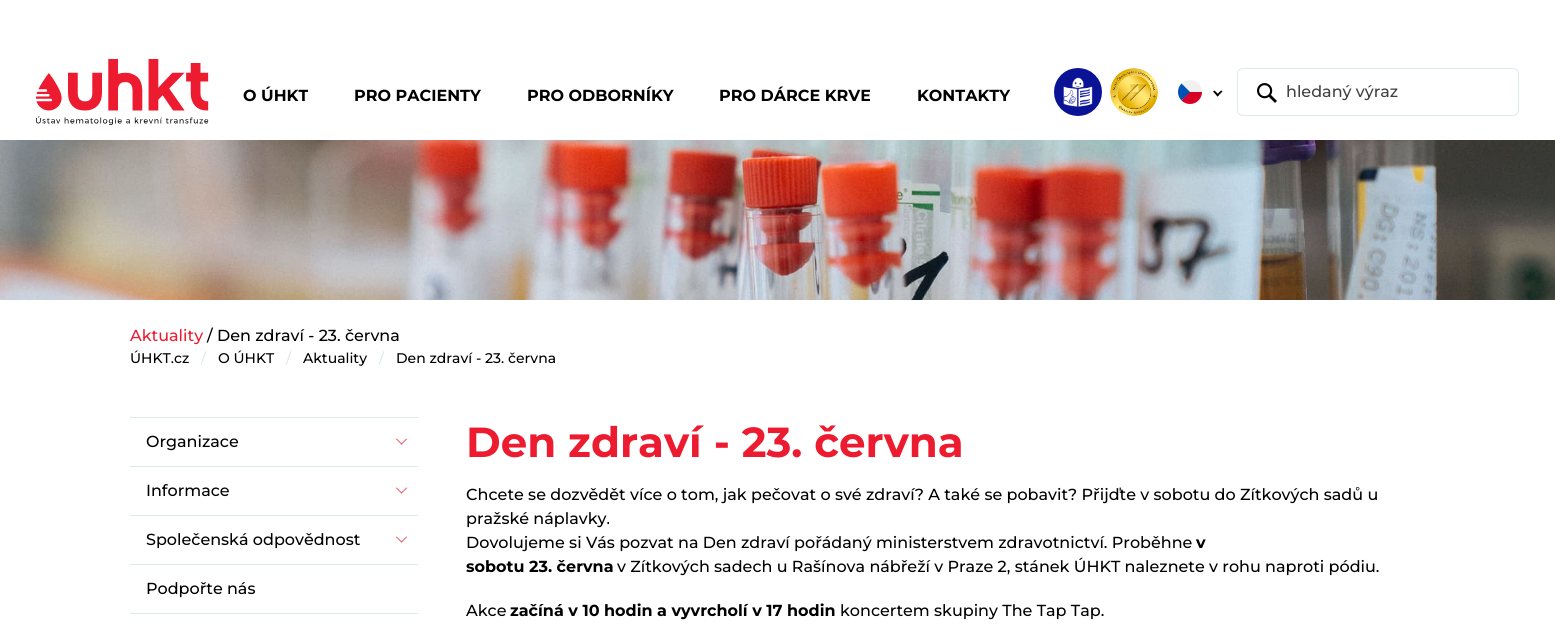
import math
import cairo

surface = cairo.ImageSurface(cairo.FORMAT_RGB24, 1555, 632)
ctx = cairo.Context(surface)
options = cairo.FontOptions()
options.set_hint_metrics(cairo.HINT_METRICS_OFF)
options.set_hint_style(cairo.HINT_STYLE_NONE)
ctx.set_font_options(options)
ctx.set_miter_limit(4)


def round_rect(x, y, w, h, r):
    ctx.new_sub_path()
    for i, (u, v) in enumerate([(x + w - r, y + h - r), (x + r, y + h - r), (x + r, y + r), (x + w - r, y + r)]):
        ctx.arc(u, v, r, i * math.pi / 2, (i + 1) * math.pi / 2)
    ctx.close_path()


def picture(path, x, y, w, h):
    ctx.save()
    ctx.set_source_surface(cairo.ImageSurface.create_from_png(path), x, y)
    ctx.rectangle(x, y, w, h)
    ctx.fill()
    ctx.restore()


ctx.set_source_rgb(1, 1, 1)
ctx.paint()
picture("img1.png", 36, 59, 173, 66)
ctx.select_font_face("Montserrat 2 Thin")
ctx.set_font_size(16)
ctx.set_source_rgb(0, 0, 0)
ctx.move_to(243, 101)
ctx.show_text("O ÚHKT")
ctx.move_to(354, 101)
ctx.show_text("PRO PACIENTY")
ctx.move_to(527, 101)
ctx.show_text("PRO ODBORNÍKY")
ctx.move_to(719, 101)
ctx.show_text("PRO DÁRCE KRVE")
ctx.move_to(917, 101)
ctx.show_text("KONTAKTY")
picture("img2.png", 1054, 68, 48, 48)
picture("img3.png", 1110, 68, 48, 48)
picture("img4.png", 1178, 80, 24, 24)
ctx.new_path()
ctx.move_to(1221, 90.5)
ctx.line_to(1222.5, 91.5)
ctx.line_to(1217.5, 96.5)
ctx.line_to(1216.5, 95)
ctx.close_path()
ctx.fill()
ctx.new_path()
ctx.move_to(1214.5, 90.5)
ctx.line_to(1219, 95)
ctx.line_to(1217.5, 96.5)
ctx.line_to(1213, 91.5)
ctx.close_path()
ctx.fill()
round_rect(1237.5, 68.5, 281, 47, 5.5)
ctx.set_source_rgb(0.871, 0.914, 0.922)
ctx.set_line_width(1)
ctx.stroke()
picture("img5.png", 1257, 83, 20, 20)
ctx.select_font_face("Montserrat Thin")
ctx.set_source_rgb(0.251, 0.251, 0.251)
ctx.move_to(1286, 97)
ctx.show_text("hledaný výraz")
picture("img6.png", 0, 140, 1555, 160)
ctx.set_source_rgb(0.929, 0.106, 0.184)
ctx.move_to(130, 341)
ctx.show_text("Aktuality")
ctx.set_source_rgb(0, 0, 0)
ctx.move_to(207, 341)
ctx.show_text("/ Den zdraví - 23. června")
ctx.set_font_size(14)
ctx.move_to(130, 363)
ctx.show_text("ÚHKT.cz")
ctx.set_source_rgb(0.871, 0.914, 0.922)
ctx.move_to(201, 363)
ctx.show_text("/")
ctx.set_source_rgb(0, 0, 0)
ctx.move_to(218, 363)
ctx.show_text("O ÚHKT")
ctx.set_source_rgb(0.871, 0.914, 0.922)
ctx.move_to(286, 363)
ctx.show_text("/")
ctx.set_source_rgb(0, 0, 0)
ctx.move_to(303, 363)
ctx.show_text("Aktuality")
ctx.set_source_rgb(0.871, 0.914, 0.922)
ctx.move_to(379, 363)
ctx.show_text("/")
ctx.set_source_rgb(0, 0, 0)
ctx.move_to(396, 363)
ctx.show_text("Den zdraví - 23. června")
ctx.set_source_rgb(0.871, 0.914, 0.922)
ctx.rectangle(130, 417, 288, 1)
ctx.fill()
ctx.rectangle(130, 466, 288, 1)
ctx.fill()
ctx.set_font_size(16)
ctx.set_source_rgb(0, 0, 0)
ctx.move_to(146, 447)
ctx.show_text("Organizace")
ctx.set_source_rgb(0.929, 0.106, 0.184)
ctx.new_path()
ctx.move_to(401.5, 444.5)
ctx.line_to(396, 439)
ctx.line_to(396.5, 438.5)
ctx.line_to(402, 444)
ctx.close_path()
ctx.fill()
ctx.new_path()
ctx.move_to(401.5, 444.5)
ctx.line_to(401, 444)
ctx.line_to(406.5, 438.5)
ctx.line_to(407, 439)
ctx.close_path()
ctx.move_to(401.5, 493.5)
ctx.line_to(396, 488)
ctx.line_to(396.5, 487.5)
ctx.line_to(402, 493)
ctx.close_path()
ctx.fill()
ctx.set_source_rgb(0.871, 0.914, 0.922)
ctx.rectangle(130, 515, 288, 1)
ctx.fill()
ctx.set_source_rgb(0, 0, 0)
ctx.move_to(146, 496)
ctx.show_text("Informace")
ctx.set_source_rgb(0.929, 0.106, 0.184)
ctx.new_path()
ctx.move_to(401.5, 493.5)
ctx.line_to(401, 493)
ctx.line_to(406.5, 487.5)
ctx.line_to(407, 488)
ctx.close_path()
ctx.move_to(401.5, 542.5)
ctx.line_to(396, 537)
ctx.line_to(396.5, 536.5)
ctx.line_to(402, 542)
ctx.close_path()
ctx.fill()
ctx.set_source_rgb(0.871, 0.914, 0.922)
ctx.rectangle(130, 564, 288, 1)
ctx.fill()
ctx.set_source_rgb(0, 0, 0)
ctx.move_to(146, 545)
ctx.show_text("Společenská odpovědnost")
ctx.set_source_rgb(0.929, 0.106, 0.184)
ctx.new_path()
ctx.move_to(401.5, 542.5)
ctx.line_to(401, 542)
ctx.line_to(406.5, 536.5)
ctx.line_to(407, 537)
ctx.close_path()
ctx.fill()
ctx.set_source_rgb(0.871, 0.914, 0.922)
ctx.rectangle(130, 613, 288, 1)
ctx.fill()
ctx.set_source_rgb(0, 0, 0)
ctx.move_to(146, 594)
ctx.show_text("Podpořte nás")
ctx.select_font_face("Montserrat 2 Thin")
ctx.set_font_size(42)
ctx.set_source_rgb(0.929, 0.106, 0.184)
ctx.move_to(466, 457)
ctx.show_text("Den zdraví - 23. června")
ctx.select_font_face("Montserrat Thin")
ctx.set_font_size(16)
ctx.set_source_rgb(0, 0, 0)
ctx.move_to(466, 500)
ctx.show_text("Chcete se dozvědět více o tom, jak pečovat o své zdraví? A také se pobavit? Přijďte v sobotu do Zítkových sadů u")
ctx.move_to(466, 524)
ctx.show_text("pražské náplavky.")
ctx.move_to(466, 548)
ctx.show_text("Dovolujeme si Vás pozvat na Den zdraví pořádaný ministerstvem zdravotnictví. Proběhne")
ctx.select_font_face("Montserrat 2 Thin")
ctx.move_to(1196, 548)
ctx.show_text("v")
ctx.move_to(466, 572)
ctx.show_text("sobotu 23. června")
ctx.select_font_face("Montserrat Thin")
ctx.move_to(617, 572)
ctx.show_text("v Zítkových sadech u Rašínova nábřeží v Praze 2, stánek ÚHKT naleznete v rohu naproti pódiu.")
ctx.move_to(466, 616)
ctx.show_text("Akce")
ctx.select_font_face("Montserrat 2 Thin")
ctx.move_to(510, 616)
ctx.show_text("začíná v 10 hodin a vyvrcholí v 17 hodin")
ctx.select_font_face("Montserrat Thin")
ctx.move_to(840, 616)
ctx.show_text("koncertem skupiny The Tap Tap.")
surface.write_to_png("page.png")
